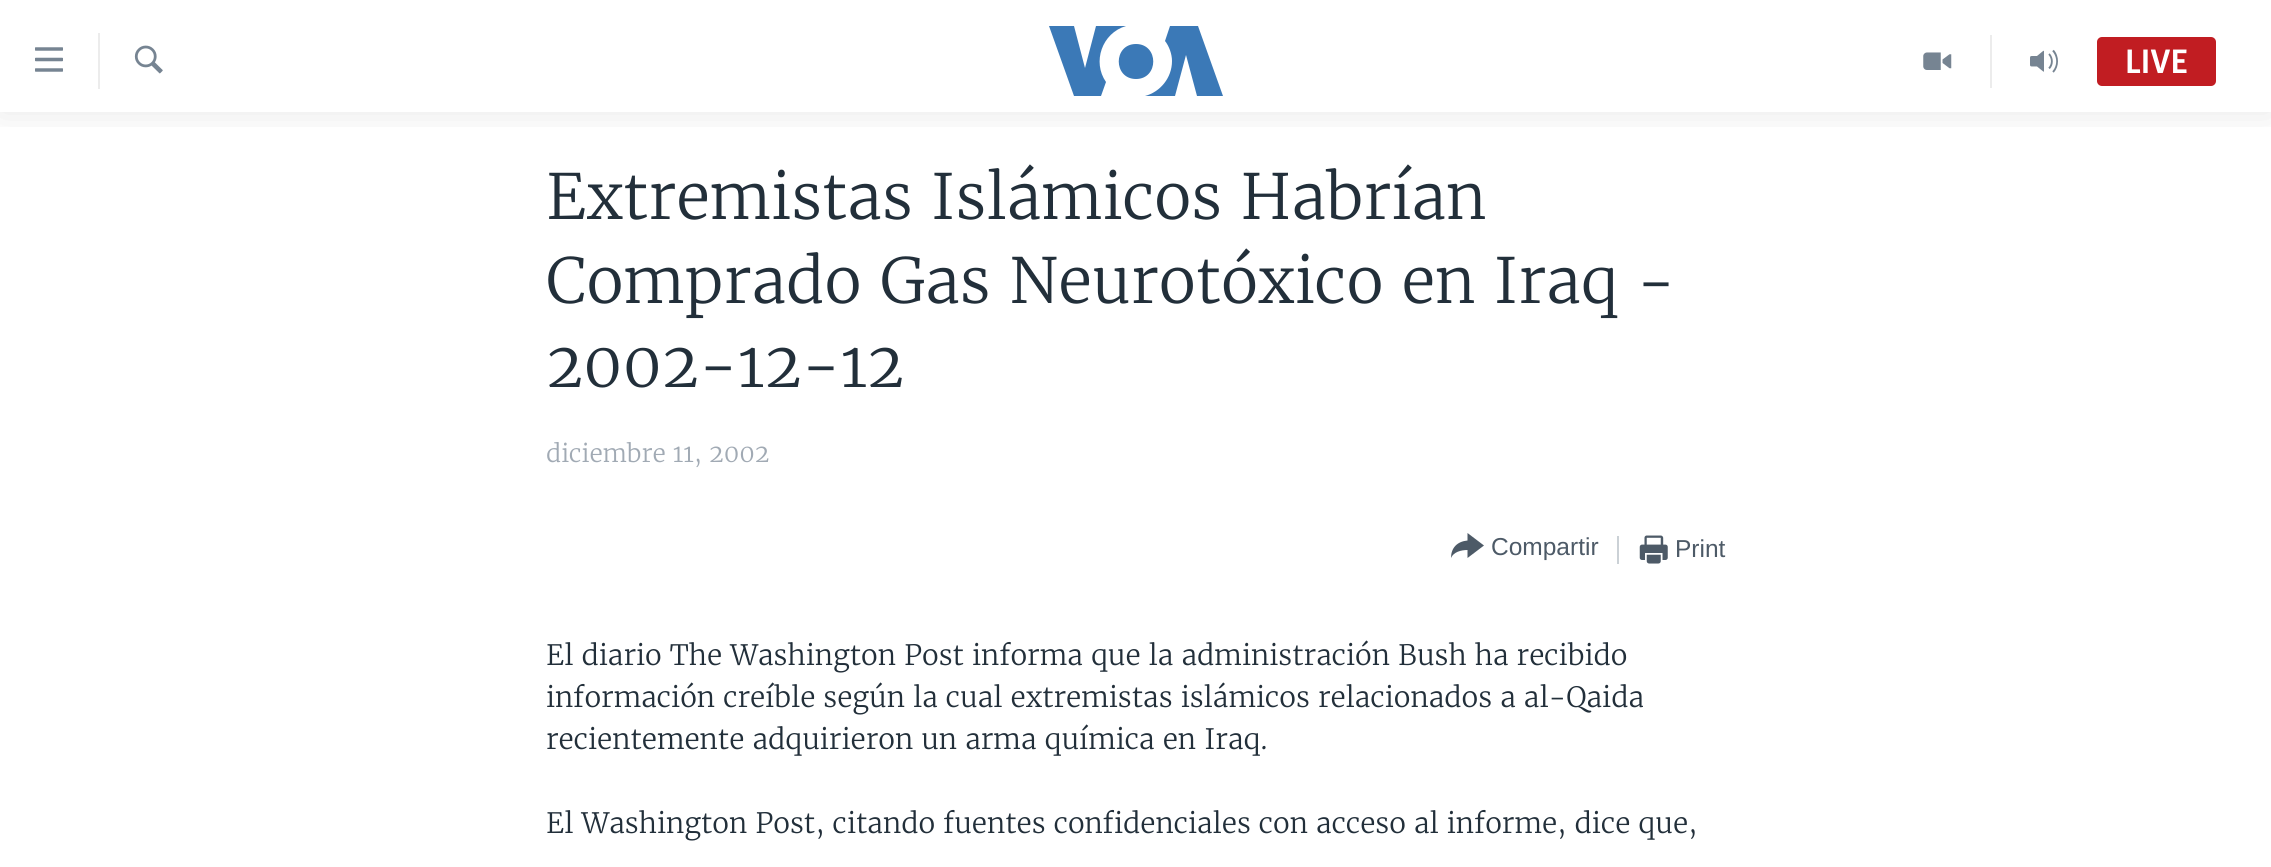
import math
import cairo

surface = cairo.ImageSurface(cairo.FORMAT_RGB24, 2271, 867)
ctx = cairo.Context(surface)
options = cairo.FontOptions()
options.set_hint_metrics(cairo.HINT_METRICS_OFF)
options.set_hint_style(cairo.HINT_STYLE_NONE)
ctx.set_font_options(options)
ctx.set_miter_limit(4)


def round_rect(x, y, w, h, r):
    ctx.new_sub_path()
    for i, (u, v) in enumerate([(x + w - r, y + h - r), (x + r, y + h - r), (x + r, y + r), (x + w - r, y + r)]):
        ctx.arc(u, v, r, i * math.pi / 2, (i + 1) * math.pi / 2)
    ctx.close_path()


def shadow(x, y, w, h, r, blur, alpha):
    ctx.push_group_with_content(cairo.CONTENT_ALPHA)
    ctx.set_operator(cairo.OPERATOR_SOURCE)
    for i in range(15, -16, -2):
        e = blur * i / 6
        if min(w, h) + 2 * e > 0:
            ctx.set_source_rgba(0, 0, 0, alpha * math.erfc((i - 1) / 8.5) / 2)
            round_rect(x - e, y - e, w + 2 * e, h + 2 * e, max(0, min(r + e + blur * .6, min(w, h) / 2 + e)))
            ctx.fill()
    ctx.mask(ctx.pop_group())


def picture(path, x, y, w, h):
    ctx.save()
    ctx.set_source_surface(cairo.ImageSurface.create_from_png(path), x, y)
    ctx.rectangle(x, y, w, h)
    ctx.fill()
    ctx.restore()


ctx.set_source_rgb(1, 1, 1)
ctx.paint()
ctx.save()
ctx.rectangle(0, 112, 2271, 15)
ctx.clip()
ctx.set_source_rgb(0, 0, 0)
shadow(0, 0, 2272, 112, 0, 17.5, 0.1)
ctx.restore()
picture("img1.png", 35, 47, 28, 25)
ctx.set_source_rgb(0.922, 0.922, 0.922)
ctx.rectangle(98, 33, 2, 56)
ctx.fill()
picture("img2.png", 134, 45, 29, 29)
ctx.set_source_rgb(0.231, 0.475, 0.718)
ctx.new_path()
ctx.move_to(1106, 82)
ctx.line_to(1101, 96)
ctx.line_to(1074, 96)
ctx.line_to(1049, 26)
ctx.line_to(1074, 26)
ctx.line_to(1085, 68)
ctx.line_to(1096, 26)
ctx.line_to(1126, 26)
ctx.curve_to(1102, 33, 1092, 62, 1106, 82)
ctx.close_path()
ctx.move_to(1136, 44)
ctx.curve_to(1113, 44, 1113, 79, 1136, 79)
ctx.curve_to(1159, 79, 1159, 44, 1136, 44)
ctx.close_path()
ctx.move_to(1172, 61)
ctx.curve_to(1172, 78, 1160, 92, 1145, 96)
ctx.line_to(1175, 96)
ctx.line_to(1186, 55)
ctx.line_to(1197, 96)
ctx.line_to(1223, 96)
ctx.line_to(1198, 26)
ctx.line_to(1170, 26)
ctx.line_to(1165, 41)
ctx.curve_to(1169, 46, 1172, 54, 1172, 61)
ctx.close_path()
ctx.fill()
ctx.set_source_rgb(0.922, 0.922, 0.922)
ctx.rectangle(1990, 35, 2, 53)
ctx.fill()
picture("img3.png", 1923, 52, 29, 18)
picture("img4.png", 2030, 49, 28, 24)
ctx.set_source_rgb(0.757, 0.114, 0.133)
round_rect(2097, 37, 119, 49, 5)
ctx.fill()
ctx.select_font_face("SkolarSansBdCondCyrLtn", cairo.FONT_SLANT_NORMAL, cairo.FONT_WEIGHT_BOLD)
ctx.set_font_size(35)
ctx.set_source_rgb(1, 1, 1)
ctx.move_to(2125, 73)
ctx.show_text("LIVE")
ctx.select_font_face("Merriweather Light")
ctx.set_font_size(62.2)
ctx.set_source_rgb(0.133, 0.184, 0.227)
ctx.move_to(546, 219)
ctx.show_text("Extremistas Islámicos Habrían")
ctx.move_to(546, 303)
ctx.show_text("Comprado Gas Neurotóxico en Iraq -")
ctx.move_to(546, 387)
ctx.show_text("2002-12-12")
ctx.set_font_size(24.5)
ctx.set_source_rgb(0.631, 0.667, 0.706)
ctx.move_to(546, 462)
ctx.show_text("diciembre 11, 2002")
ctx.set_source_rgb(0.302, 0.353, 0.404)
ctx.new_path()
ctx.move_to(1451, 558)
ctx.curve_to(1451, 548, 1457, 541.5, 1467.5, 540.5)
ctx.line_to(1467.5, 533)
ctx.line_to(1484, 545.5)
ctx.line_to(1467.5, 558)
ctx.line_to(1467.5, 550)
ctx.curve_to(1461, 550, 1453.5, 552, 1451, 558)
ctx.close_path()
ctx.fill()
ctx.select_font_face("Liberation Sans")
ctx.move_to(1491, 555)
ctx.show_text("Compartir")
ctx.set_source_rgb(0.796, 0.82, 0.839)
ctx.rectangle(1617, 536, 2, 28)
ctx.fill()
picture("img5.png", 1639, 535, 29, 29)
ctx.set_source_rgb(0.302, 0.353, 0.404)
ctx.move_to(1675, 557)
ctx.show_text("Print")
ctx.select_font_face("Merriweather Light")
ctx.set_font_size(28)
ctx.set_source_rgb(0.133, 0.184, 0.227)
ctx.move_to(546, 665)
ctx.show_text("El diario The Washington Post informa que la administración Bush ha recibido")
ctx.move_to(546, 707)
ctx.show_text("información creíble según la cual extremistas islámicos relacionados a al-Qaida")
ctx.move_to(546, 749)
ctx.show_text("recientemente adquirieron un arma química en Iraq.")
ctx.move_to(546, 833)
ctx.show_text("El Washington Post, citando fuentes confidenciales con acceso al informe, dice que,")
surface.write_to_png("page.png")
